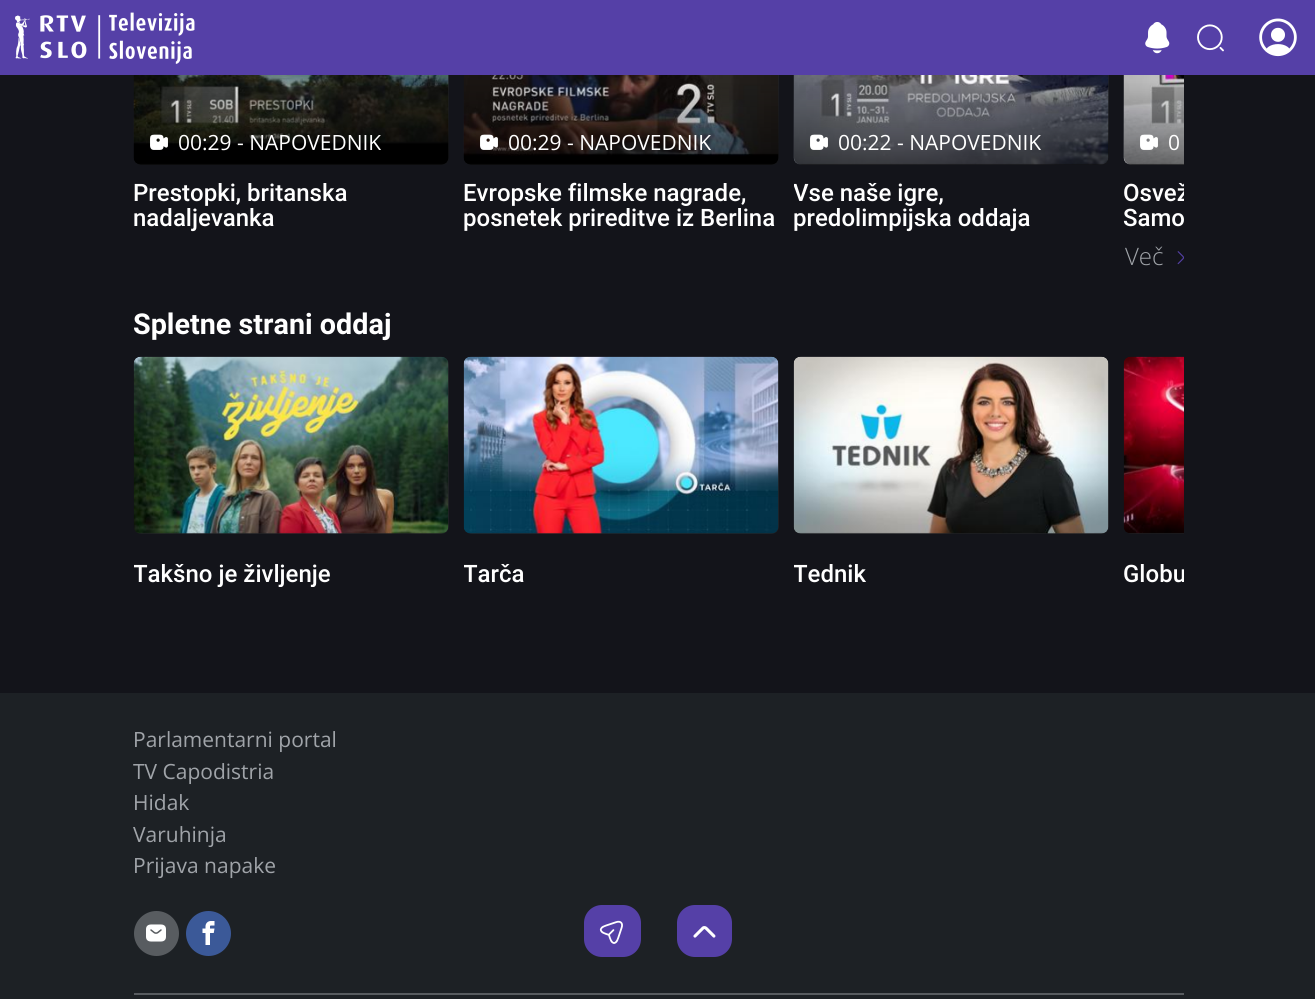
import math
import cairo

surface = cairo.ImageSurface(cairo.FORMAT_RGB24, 1315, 999)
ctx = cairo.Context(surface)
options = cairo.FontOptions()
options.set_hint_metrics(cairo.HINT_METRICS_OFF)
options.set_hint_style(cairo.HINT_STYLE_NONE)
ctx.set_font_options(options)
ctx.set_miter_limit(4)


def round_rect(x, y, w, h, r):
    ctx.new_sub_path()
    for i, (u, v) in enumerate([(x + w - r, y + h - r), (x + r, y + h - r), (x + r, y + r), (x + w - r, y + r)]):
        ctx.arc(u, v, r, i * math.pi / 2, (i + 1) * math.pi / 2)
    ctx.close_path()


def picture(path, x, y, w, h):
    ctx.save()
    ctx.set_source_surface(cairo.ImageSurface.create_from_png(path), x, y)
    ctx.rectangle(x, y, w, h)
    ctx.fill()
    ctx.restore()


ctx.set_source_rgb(0.078, 0.082, 0.102)
ctx.paint()
ctx.set_source_rgb(0.125, 0.129, 0.145)
round_rect(134, -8, 315, 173, 8)
ctx.fill()
round_rect(464, -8, 315, 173, 8)
ctx.fill()
round_rect(794, -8, 315, 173, 8)
ctx.fill()
ctx.new_path()
ctx.move_to(1132, -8)
ctx.line_to(1184, -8)
ctx.line_to(1184, 165)
ctx.line_to(1132, 165)
ctx.curve_to(1127.5, 165, 1124, 161.5, 1124, 157)
ctx.line_to(1124, 0)
ctx.curve_to(1124, -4.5, 1127.5, -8, 1132, -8)
ctx.close_path()
ctx.fill()
ctx.set_source_rgb(0.333, 0.251, 0.655)
ctx.rectangle(0, 0, 1315, 75)
ctx.fill()
picture("img1.png", 15, 12, 180, 52)
picture("img2.png", 1145, 22, 25, 32)
picture("img3.png", 1197, 24, 27, 28)
picture("img4.png", 1259, 18, 38, 39)
picture("img5.png", 133, 75, 316, 90)
gradient = cairo.LinearGradient(291, 165, 291, 81)
gradient.add_color_stop_rgba(0, 0, 0, 0, 0.5)
gradient.add_color_stop_rgba(1, 0, 0, 0, 0)
ctx.set_source(gradient)
ctx.new_path()
ctx.move_to(134, 81)
ctx.line_to(449, 81)
ctx.line_to(449, 157)
ctx.curve_to(449, 161.5, 445.5, 165, 441, 165)
ctx.line_to(142, 165)
ctx.curve_to(137.5, 165, 134, 161.5, 134, 157)
ctx.close_path()
ctx.fill()
picture("img6.png", 150, 134, 18, 16)
ctx.select_font_face("Open Sans")
ctx.set_font_size(21)
ctx.set_source_rgb(1, 1, 1)
ctx.move_to(178, 150)
ctx.show_text("00:29 - NAPOVEDNIK")
ctx.select_font_face("Roboto Medium")
ctx.set_font_size(24)
ctx.move_to(133, 201)
ctx.show_text("Prestopki, britanska")
ctx.move_to(133, 226)
ctx.show_text("nadaljevanka")
picture("img7.png", 463, 75, 316, 90)
gradient = cairo.LinearGradient(621, 165, 621, 81)
gradient.add_color_stop_rgba(0, 0, 0, 0, 0.5)
gradient.add_color_stop_rgba(1, 0, 0, 0, 0)
ctx.set_source(gradient)
ctx.new_path()
ctx.move_to(464, 81)
ctx.line_to(779, 81)
ctx.line_to(779, 157)
ctx.curve_to(779, 161.5, 775.5, 165, 771, 165)
ctx.line_to(472, 165)
ctx.curve_to(467.5, 165, 464, 161.5, 464, 157)
ctx.close_path()
ctx.fill()
picture("img8.png", 480, 134, 18, 16)
ctx.select_font_face("Open Sans")
ctx.set_font_size(21)
ctx.set_source_rgb(1, 1, 1)
ctx.move_to(508, 150)
ctx.show_text("00:29 - NAPOVEDNIK")
ctx.select_font_face("Roboto Medium")
ctx.set_font_size(24)
ctx.move_to(463, 201)
ctx.show_text("Evropske filmske nagrade,")
ctx.move_to(463, 226)
ctx.show_text("posnetek prireditve iz Berlina")
picture("img9.png", 793, 75, 316, 90)
gradient = cairo.LinearGradient(951, 165, 951, 81)
gradient.add_color_stop_rgba(0, 0, 0, 0, 0.5)
gradient.add_color_stop_rgba(1, 0, 0, 0, 0)
ctx.set_source(gradient)
ctx.new_path()
ctx.move_to(794, 81)
ctx.line_to(1109, 81)
ctx.line_to(1109, 157)
ctx.curve_to(1109, 161.5, 1105.5, 165, 1101, 165)
ctx.line_to(802, 165)
ctx.curve_to(797.5, 165, 794, 161.5, 794, 157)
ctx.close_path()
ctx.fill()
picture("img10.png", 810, 134, 18, 16)
ctx.select_font_face("Open Sans")
ctx.set_font_size(21)
ctx.set_source_rgb(1, 1, 1)
ctx.move_to(838, 150)
ctx.show_text("00:22 - NAPOVEDNIK")
ctx.save()
round_rect(794, -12, 315, 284, 8)
ctx.clip()
ctx.select_font_face("Roboto Medium")
ctx.set_font_size(24)
ctx.move_to(793, 201)
ctx.show_text("Vse naše igre,")
ctx.restore()
ctx.select_font_face("Roboto Medium")
ctx.set_font_size(24)
ctx.move_to(793, 226)
ctx.show_text("predolimpijska oddaja")
picture("img11.png", 1123, 75, 61, 90)
gradient = cairo.LinearGradient(1281, 165, 1281, 81)
gradient.add_color_stop_rgba(0, 0, 0, 0, 0.5)
gradient.add_color_stop_rgba(1, 0, 0, 0, 0)
ctx.set_source(gradient)
ctx.new_path()
ctx.move_to(1124, 81)
ctx.line_to(1184, 81)
ctx.line_to(1184, 165)
ctx.line_to(1132, 165)
ctx.curve_to(1127.5, 165, 1124, 161.5, 1124, 157)
ctx.close_path()
ctx.fill()
picture("img12.png", 1140, 134, 18, 16)
ctx.select_font_face("Open Sans")
ctx.set_font_size(21)
ctx.set_source_rgb(1, 1, 1)
ctx.move_to(1168, 150)
ctx.show_text("0")
ctx.save()
ctx.rectangle(1124, 180, 60, 77)
ctx.clip()
ctx.select_font_face("Roboto Medium")
ctx.set_font_size(24)
ctx.move_to(1123, 201)
ctx.show_text("Osvež")
ctx.restore()
ctx.select_font_face("Roboto Medium")
ctx.set_font_size(24)
ctx.move_to(1123, 226)
ctx.show_text("Samo")
ctx.select_font_face("Open Sans Light")
ctx.set_source_rgb(0.627, 0.643, 0.663)
ctx.move_to(1125, 265)
ctx.show_text("Več")
picture("img13.png", 1177, 251, 7, 14)
ctx.select_font_face("Roboto", cairo.FONT_SLANT_NORMAL, cairo.FONT_WEIGHT_BOLD)
ctx.set_font_size(28.75)
ctx.set_source_rgb(1, 1, 1)
ctx.move_to(133, 334)
ctx.show_text("Spletne strani oddaj")
ctx.set_source_rgb(0.125, 0.129, 0.145)
round_rect(134, 357, 315, 177, 8)
ctx.fill()
picture("img14.png", 133, 356, 316, 178)
ctx.save()
ctx.rectangle(134, 561, 315, 26)
ctx.clip()
ctx.select_font_face("Roboto Medium")
ctx.set_font_size(24)
ctx.set_source_rgb(1, 1, 1)
ctx.move_to(133, 582)
ctx.show_text("Takšno je življenje")
ctx.restore()
round_rect(464, 357, 315, 177, 8)
ctx.fill()
picture("img15.png", 463, 356, 316, 178)
ctx.save()
round_rect(464, 357, 315, 245, 8)
ctx.clip()
ctx.select_font_face("Roboto Medium")
ctx.set_font_size(24)
ctx.set_source_rgb(1, 1, 1)
ctx.move_to(463, 582)
ctx.show_text("Tarča")
ctx.restore()
round_rect(794, 357, 315, 177, 8)
ctx.fill()
picture("img16.png", 793, 356, 316, 178)
ctx.save()
round_rect(794, 357, 315, 245, 8)
ctx.clip()
ctx.select_font_face("Roboto Medium")
ctx.set_font_size(24)
ctx.set_source_rgb(1, 1, 1)
ctx.move_to(793, 582)
ctx.show_text("Tednik")
ctx.restore()
ctx.new_path()
ctx.move_to(1132, 357)
ctx.line_to(1184, 357)
ctx.line_to(1184, 534)
ctx.line_to(1132, 534)
ctx.curve_to(1127.5, 534, 1124, 530.5, 1124, 526)
ctx.line_to(1124, 365)
ctx.curve_to(1124, 360.5, 1127.5, 357, 1132, 357)
ctx.close_path()
ctx.fill()
picture("img17.png", 1123, 356, 61, 178)
ctx.save()
ctx.rectangle(1124, 561, 60, 26)
ctx.clip()
ctx.select_font_face("Roboto Medium")
ctx.set_font_size(24)
ctx.set_source_rgb(1, 1, 1)
ctx.move_to(1123, 582)
ctx.show_text("Globu")
ctx.restore()
ctx.set_source_rgb(0.114, 0.129, 0.145)
ctx.rectangle(0, 693, 1315, 306)
ctx.fill()
ctx.select_font_face("Open Sans")
ctx.set_font_size(21)
ctx.set_source_rgb(0.627, 0.643, 0.663)
ctx.move_to(133, 747)
ctx.show_text("Parlamentarni portal")
ctx.move_to(133, 779)
ctx.show_text("TV Capodistria")
ctx.move_to(133, 810)
ctx.show_text("Hidak")
ctx.move_to(133, 842)
ctx.show_text("Varuhinja")
ctx.move_to(133, 873)
ctx.show_text("Prijava napake")
ctx.set_source_rgb(0.345, 0.361, 0.376)
ctx.new_path()
ctx.arc(156.5, 933.5, 22.5, 0, 2 * math.pi)
ctx.fill()
picture("img18.png", 146, 924, 20, 18)
ctx.set_source_rgb(0.231, 0.349, 0.596)
ctx.arc(208.5, 933.5, 22.5, 0, 2 * math.pi)
ctx.fill()
picture("img19.png", 202, 921, 13, 24)
ctx.set_source_rgb(0.345, 0.361, 0.376)
ctx.rectangle(134, 993, 1050, 2)
ctx.fill()
ctx.set_source_rgb(0.333, 0.251, 0.655)
round_rect(585, 906, 55, 50, 17)
ctx.fill_preserve()
ctx.stroke()
picture("img20.png", 599, 920, 24, 24)
round_rect(678, 906, 53, 50, 17)
ctx.fill_preserve()
ctx.stroke()
picture("img21.png", 693, 926, 23, 12)
surface.write_to_png("page.png")
